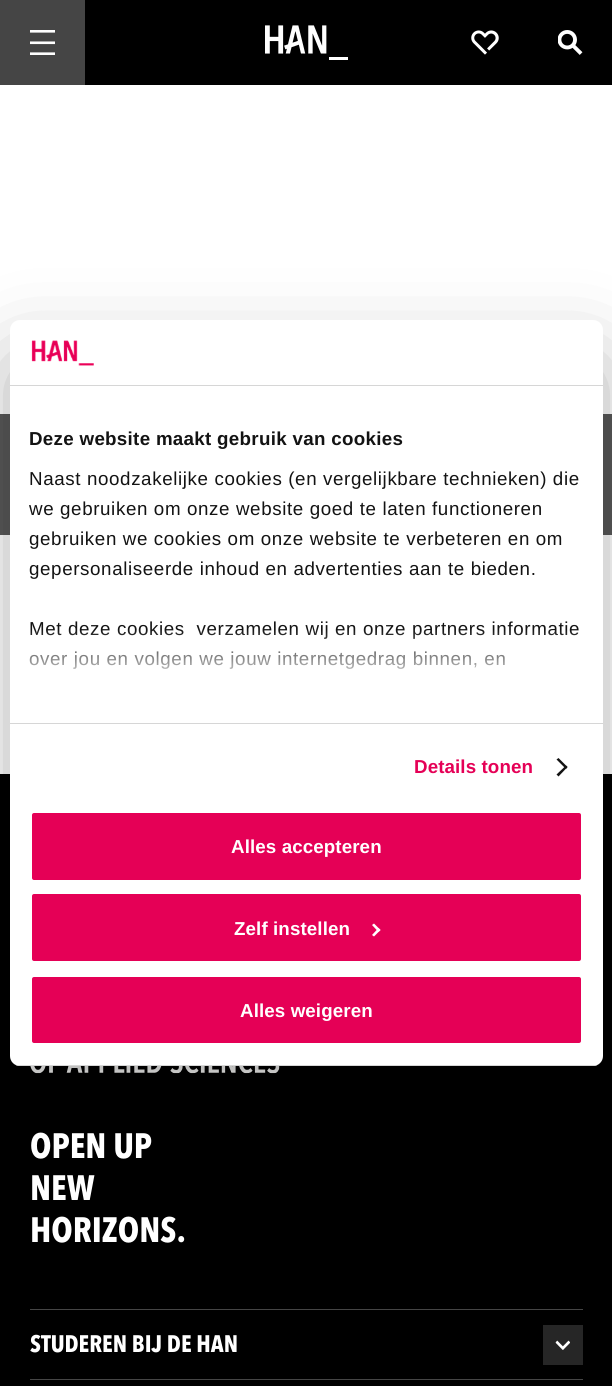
import math
import cairo

surface = cairo.ImageSurface(cairo.FORMAT_RGB24, 612, 1386)
ctx = cairo.Context(surface)
options = cairo.FontOptions()
options.set_hint_metrics(cairo.HINT_METRICS_OFF)
options.set_hint_style(cairo.HINT_STYLE_NONE)
ctx.set_font_options(options)
ctx.set_miter_limit(4)


def spaced_text(x, y, s, letter, word):
    ctx.move_to(x, y)
    for ch in s:
        ctx.show_text(ch)
        ctx.rel_move_to(letter + word * (ch == ' '), 0)


def round_rect(x, y, w, h, r):
    ctx.new_sub_path()
    for i, (u, v) in enumerate([(x + w - r, y + h - r), (x + r, y + h - r), (x + r, y + r), (x + w - r, y + r)]):
        ctx.arc(u, v, r, i * math.pi / 2, (i + 1) * math.pi / 2)
    ctx.close_path()


def shadow(x, y, w, h, r, blur, alpha):
    ctx.push_group_with_content(cairo.CONTENT_ALPHA)
    ctx.set_operator(cairo.OPERATOR_SOURCE)
    for i in range(15, -16, -2):
        e = blur * i / 6
        if min(w, h) + 2 * e > 0:
            ctx.set_source_rgba(0, 0, 0, alpha * math.erfc((i - 1) / 8.5) / 2)
            round_rect(x - e, y - e, w + 2 * e, h + 2 * e, max(0, min(r + e + blur * .6, min(w, h) / 2 + e)))
            ctx.fill()
    ctx.mask(ctx.pop_group())


def picture(path, x, y, w, h):
    ctx.save()
    ctx.set_source_surface(cairo.ImageSurface.create_from_png(path), x, y)
    ctx.rectangle(x, y, w, h)
    ctx.fill()
    ctx.restore()


ctx.set_source_rgb(1, 1, 1)
ctx.paint()
ctx.set_source_rgb(0, 0, 0)
ctx.rectangle(85, 0, 527, 85)
ctx.fill()
ctx.set_source_rgb(0.271, 0.271, 0.271)
ctx.rectangle(0, 0, 85, 85)
ctx.fill()
picture("img1.png", 30, 30, 25, 25)
picture("img2.png", 265, 25, 83, 35)
picture("img3.png", 471, 30, 28, 25)
picture("img4.png", 558, 30, 25, 25)
ctx.set_source_rgb(0.349, 0.349, 0.349)
ctx.rectangle(0, 414, 612, 121)
ctx.fill()
ctx.set_source_rgb(0, 0, 0)
ctx.rectangle(0, 774, 612, 612)
ctx.fill()
picture("img6.png", 30, 1066, 250, 8)
ctx.set_source_rgb(0, 0, 0)
shadow(10, 360, 593, 746, 10, 42.5, 0.3)
ctx.set_source_rgb(1, 1, 1)
round_rect(10, 320, 593, 746, 10)
ctx.fill()
ctx.set_source_rgb(0.839, 0.839, 0.839)
ctx.rectangle(10, 385, 593, 1)
ctx.fill()
picture("img5.png", 31, 340, 63, 26)
ctx.rectangle(10, 723, 593, 1)
ctx.fill()
ctx.select_font_face("Liberation Sans", cairo.FONT_SLANT_NORMAL, cairo.FONT_WEIGHT_BOLD)
ctx.set_font_size(18.75)
ctx.set_source_rgb(0.078, 0.078, 0.078)
spaced_text(29, 445, "Deze website maakt gebruik van cookies", 0.3, 0)
ctx.select_font_face("Liberation Sans")
spaced_text(29, 485, "Naast noodzakelijke cookies (en vergelijkbare technieken) die", 0.62, 0)
spaced_text(29, 515, "we gebruiken om onze website goed te laten functioneren", 0.62, 0)
spaced_text(29, 545, "gebruiken we cookies om onze website te verbeteren en om", 0.62, 0)
spaced_text(29, 575, "gepersonaliseerde inhoud en advertenties aan te bieden.", 0.62, 0)
spaced_text(29, 635, "Met deze cookies  verzamelen wij en onze partners informatie", 0.62, 0)
spaced_text(29, 665, "over jou en volgen we jouw internetgedrag binnen, en", 0.62, 0)
gradient = cairo.LinearGradient(298, 723, 298, 629)
gradient.add_color_stop_rgba(0, 1, 1, 1, 1)
gradient.add_color_stop_rgba(0.5, 1, 1, 1, 0.8)
gradient.add_color_stop_rgba(1, 1, 1, 1, 0)
ctx.set_source(gradient)
ctx.rectangle(29, 630, 549, 39)
ctx.fill()
ctx.select_font_face("Liberation Sans", cairo.FONT_SLANT_NORMAL, cairo.FONT_WEIGHT_BOLD)
ctx.set_source_rgb(0.898, 0, 0.337)
spaced_text(414, 773, "Details tonen", 0.1, 0)
ctx.set_source_rgb(0.078, 0.078, 0.078)
ctx.new_path()
ctx.move_to(558.5, 758)
ctx.line_to(567.5, 767)
ctx.line_to(566, 769)
ctx.line_to(556.5, 759.5)
ctx.close_path()
ctx.fill()
ctx.new_path()
ctx.move_to(566, 765.5)
ctx.line_to(567.5, 767)
ctx.line_to(558.5, 776.5)
ctx.line_to(556.5, 774.5)
ctx.close_path()
ctx.fill()
ctx.save()
round_rect(10, 320, 593, 746, 10)
ctx.clip()
ctx.set_source_rgb(0.839, 0.839, 0.839)
ctx.rectangle(10, 1065, 593, 1)
ctx.fill()
ctx.restore()
ctx.set_source_rgb(0.898, 0, 0.337)
round_rect(30.5, 811.5, 552, 70, 3.5)
ctx.fill_preserve()
ctx.set_source_rgb(1, 1, 1)
ctx.set_line_width(3)
ctx.stroke()
spaced_text(231, 853, "Alles accepteren", 0.1, 0)
ctx.set_source_rgb(0.898, 0, 0.337)
round_rect(30.5, 892.5, 552, 70, 3.5)
ctx.fill_preserve()
ctx.set_source_rgb(1, 1, 1)
ctx.stroke()
spaced_text(234, 935, "Zelf instellen", 0.1, 0)
ctx.new_path()
ctx.move_to(374, 923.5)
ctx.line_to(380.5, 930)
ctx.line_to(378.5, 932)
ctx.line_to(372, 925)
ctx.close_path()
ctx.fill()
ctx.new_path()
ctx.move_to(378.5, 928)
ctx.line_to(380.5, 930)
ctx.line_to(374, 936.5)
ctx.line_to(372, 935)
ctx.close_path()
ctx.fill()
ctx.set_source_rgb(0.898, 0, 0.337)
round_rect(30.5, 975.5, 552, 69, 3.5)
ctx.fill_preserve()
ctx.set_source_rgb(1, 1, 1)
ctx.stroke()
spaced_text(240, 1017, "Alles weigeren", 0.1, 0)
ctx.select_font_face("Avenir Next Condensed", cairo.FONT_SLANT_NORMAL, cairo.FONT_WEIGHT_BOLD)
ctx.set_font_size(35)
ctx.move_to(30, 1158)
ctx.show_text("OPEN UP")
ctx.move_to(30, 1200)
ctx.show_text("NEW")
ctx.move_to(30, 1242)
ctx.show_text("HORIZONS.")
ctx.set_source_rgb(0.271, 0.271, 0.271)
ctx.rectangle(30, 1309, 553, 1)
ctx.fill()
ctx.rectangle(30, 1379, 553, 1)
ctx.fill()
ctx.set_font_size(23.75)
ctx.set_source_rgb(1, 1, 1)
ctx.move_to(30, 1352)
ctx.show_text("STUDEREN BIJ DE HAN")
ctx.set_source_rgb(0.149, 0.149, 0.149)
ctx.rectangle(543, 1325, 40, 40)
ctx.fill()
picture("img7.png", 555, 1340, 15, 10)
surface.write_to_png("page.png")
